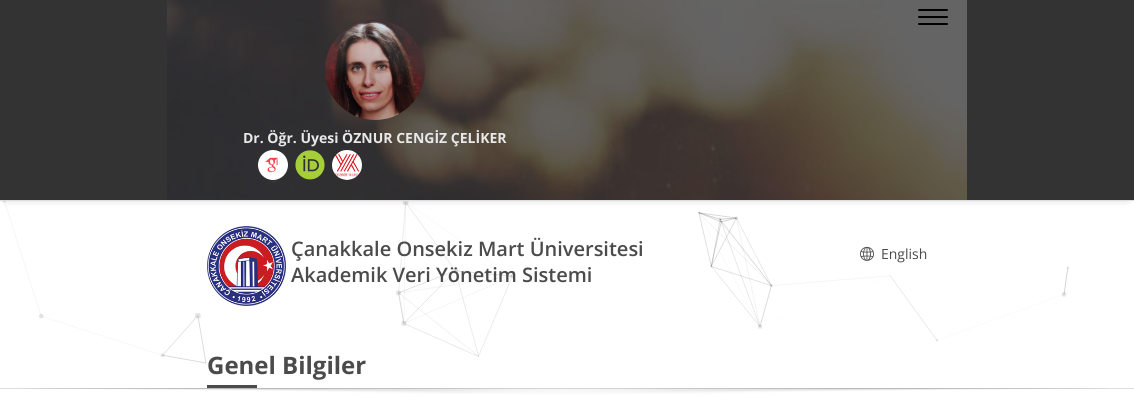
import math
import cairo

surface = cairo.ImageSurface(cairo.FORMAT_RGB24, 1134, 415)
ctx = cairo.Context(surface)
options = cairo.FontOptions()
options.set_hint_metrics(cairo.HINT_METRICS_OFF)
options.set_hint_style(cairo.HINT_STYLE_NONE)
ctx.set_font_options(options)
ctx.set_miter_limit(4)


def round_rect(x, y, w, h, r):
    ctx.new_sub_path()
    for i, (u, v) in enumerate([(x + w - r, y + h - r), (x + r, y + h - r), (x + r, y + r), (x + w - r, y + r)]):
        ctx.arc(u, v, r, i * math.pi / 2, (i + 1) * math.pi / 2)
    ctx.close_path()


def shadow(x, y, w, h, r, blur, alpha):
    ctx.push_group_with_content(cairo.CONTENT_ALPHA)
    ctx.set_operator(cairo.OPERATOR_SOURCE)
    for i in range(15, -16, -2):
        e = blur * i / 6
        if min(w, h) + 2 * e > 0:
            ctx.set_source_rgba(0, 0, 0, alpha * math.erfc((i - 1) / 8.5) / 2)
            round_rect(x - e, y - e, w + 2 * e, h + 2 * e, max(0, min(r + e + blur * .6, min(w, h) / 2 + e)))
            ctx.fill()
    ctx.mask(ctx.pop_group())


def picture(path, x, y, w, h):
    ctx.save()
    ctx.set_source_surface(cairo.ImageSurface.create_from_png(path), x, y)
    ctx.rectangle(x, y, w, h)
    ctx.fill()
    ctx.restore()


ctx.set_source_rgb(1, 1, 1)
ctx.paint()
picture("img6.png", 2, 201, 1067, 163)
ctx.set_source_rgb(0, 0, 0)
shadow(7, 9, 1120, 187, 0, 5, 0.5)
ctx.set_source_rgb(0.2, 0.2, 0.2)
ctx.rectangle(0, 0, 1134, 200)
ctx.fill()
ctx.set_source_rgb(0.871, 0.871, 0.871)
ctx.rectangle(0, 200, 1134, 1)
ctx.fill()
picture("img1.png", 167, 0, 800, 200)
ctx.set_source_rgb(0, 0, 0)
round_rect(918, 9, 30, 2, 1)
ctx.fill()
round_rect(918, 16, 30, 2, 1)
ctx.fill()
round_rect(918, 23, 30, 2, 1)
ctx.fill()
picture("img2.png", 325, 20, 100, 100)
ctx.select_font_face("Open Sans", cairo.FONT_SLANT_NORMAL, cairo.FONT_WEIGHT_BOLD)
ctx.set_font_size(14)
ctx.set_source_rgb(0.91, 0.91, 0.91)
ctx.move_to(243, 143)
ctx.show_text("Dr. Öğr. Üyesi ÖZNUR CENGİZ ÇELİKER")
ctx.set_source_rgb(1, 1, 1)
ctx.new_path()
ctx.arc(273, 165, 15, 0, 2 * math.pi)
ctx.fill()
picture("img3.png", 265, 157, 13, 16)
picture("img4.png", 295, 150, 30, 30)
picture("img5.png", 332, 150, 30, 30)
ctx.set_source_rgb(0.871, 0.871, 0.871)
ctx.rectangle(0, 388, 1134, 1)
ctx.fill()
picture("img7.png", 207, 226, 79, 80)
ctx.select_font_face("Open Sans SemiBold")
ctx.set_font_size(20)
ctx.set_source_rgb(0.294, 0.294, 0.294)
ctx.move_to(291, 256)
ctx.show_text("Çanakkale Onsekiz Mart Üniversitesi")
ctx.move_to(291, 282)
ctx.show_text("Akademik Veri Yönetim Sistemi")
picture("img8.png", 860, 246, 14, 15)
ctx.select_font_face("Open Sans")
ctx.set_font_size(14)
ctx.move_to(881, 259)
ctx.show_text("English")
ctx.select_font_face("Open Sans", cairo.FONT_SLANT_NORMAL, cairo.FONT_WEIGHT_BOLD)
ctx.set_font_size(24)
ctx.move_to(207, 374)
ctx.show_text("Genel Bilgiler")
ctx.rectangle(207, 385, 50, 3)
ctx.fill()
picture("img9.png", 23, 388, 1086, 6)
surface.write_to_png("page.png")
